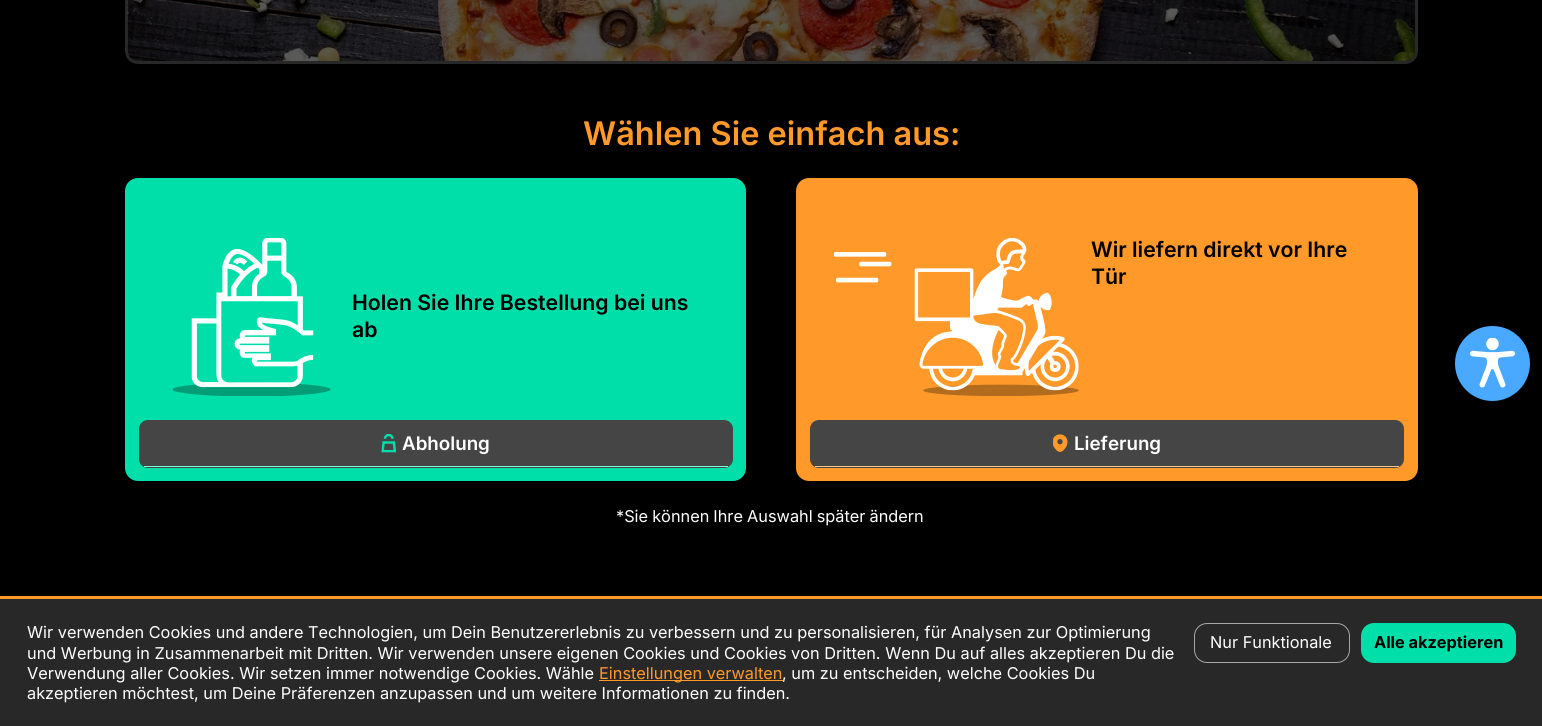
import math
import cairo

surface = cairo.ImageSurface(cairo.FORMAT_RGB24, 1542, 726)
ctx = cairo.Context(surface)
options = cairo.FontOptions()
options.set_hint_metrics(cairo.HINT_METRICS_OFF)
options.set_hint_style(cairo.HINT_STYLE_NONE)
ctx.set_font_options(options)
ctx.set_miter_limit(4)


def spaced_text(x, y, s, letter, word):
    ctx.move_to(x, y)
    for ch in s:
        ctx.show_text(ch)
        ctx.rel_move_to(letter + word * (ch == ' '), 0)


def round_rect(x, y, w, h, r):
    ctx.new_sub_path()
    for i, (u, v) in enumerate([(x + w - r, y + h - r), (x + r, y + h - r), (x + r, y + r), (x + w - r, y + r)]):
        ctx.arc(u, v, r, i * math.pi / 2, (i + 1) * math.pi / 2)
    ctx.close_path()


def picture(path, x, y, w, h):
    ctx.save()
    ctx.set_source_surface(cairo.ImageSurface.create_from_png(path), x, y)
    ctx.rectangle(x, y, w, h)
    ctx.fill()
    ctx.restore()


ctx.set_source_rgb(0, 0, 0)
ctx.paint()
round_rect(126.5, -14.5, 1290, 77, 11.5)
ctx.set_source_rgb(0.157, 0.157, 0.157)
ctx.set_line_width(3)
ctx.stroke()
picture("img1.png", 127, 0, 1288, 61)
ctx.set_source_rgba(0, 0, 0, 0.65)
round_rect(128, -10, 1287, 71, 10)
ctx.fill()
ctx.select_font_face("Inter SemiBold")
ctx.set_font_size(32.5)
ctx.set_source_rgb(1, 0.6, 0.161)
ctx.move_to(583, 145)
ctx.show_text("Wählen Sie einfach aus:")
ctx.set_source_rgb(0, 0.875, 0.667)
round_rect(125, 178, 621, 303, 13)
ctx.fill()
picture("img2.png", 172, 238, 159, 158)
ctx.set_font_size(21.25)
ctx.set_source_rgb(0, 0, 0)
ctx.move_to(352, 310)
ctx.show_text("Holen Sie Ihre Bestellung bei uns")
ctx.move_to(352, 337)
ctx.show_text("ab")
ctx.set_source_rgb(0.271, 0.271, 0.271)
round_rect(139, 420, 594, 48, 9)
ctx.fill()
ctx.set_source_rgb(0.482, 1, 0.875)
ctx.rectangle(144, 466, 584, 1)
ctx.fill()
picture("img3.png", 381, 434, 15, 19)
ctx.set_font_size(18.75)
ctx.set_source_rgb(1, 1, 1)
ctx.move_to(402, 450)
ctx.show_text("Abholung")
ctx.set_source_rgb(1, 0.6, 0.161)
round_rect(796, 178, 622, 303, 13)
ctx.fill()
picture("img4.png", 834, 238, 245, 158)
ctx.set_font_size(21.25)
ctx.set_source_rgb(0, 0, 0)
ctx.move_to(1091, 257)
ctx.show_text("Wir liefern direkt vor Ihre")
ctx.move_to(1091, 284)
ctx.show_text("Tür")
ctx.set_source_rgb(0.271, 0.271, 0.271)
round_rect(810, 420, 594, 48, 9)
ctx.fill()
ctx.set_source_rgb(1, 0.788, 0.553)
ctx.rectangle(815, 466, 584, 1)
ctx.fill()
picture("img5.png", 1053, 434, 15, 18)
ctx.set_font_size(18.75)
ctx.set_source_rgb(1, 1, 1)
ctx.move_to(1074, 450)
ctx.show_text("Lieferung")
ctx.select_font_face("Inter")
ctx.set_font_size(16.3)
spaced_text(616, 522, "*Sie können Ihre Auswahl später ändern", 0, -0.5)
ctx.set_source_rgb(0.286, 0.659, 1)
ctx.new_path()
ctx.arc(1492.5, 363.5, 37.5, 0, 2 * math.pi)
ctx.fill()
picture("img6.png", 1470, 338, 45, 50)
ctx.set_source_rgb(0.157, 0.157, 0.157)
ctx.rectangle(0, 599, 1542, 127)
ctx.fill()
ctx.set_source_rgb(1, 0.6, 0.161)
ctx.rectangle(0, 596, 1542, 3)
ctx.fill()
ctx.set_source_rgb(1, 1, 1)
ctx.move_to(27, 638)
ctx.show_text("Wir verwenden Cookies und andere Technologien, um Dein Benutzererlebnis zu verbessern und zu personalisieren, für Analysen zur Optimierung")
ctx.move_to(27, 659)
ctx.show_text("und Werbung in Zusammenarbeit mit Dritten. Wir verwenden unsere eigenen Cookies und Cookies von Dritten. Wenn Du auf alles akzeptieren Du die")
ctx.move_to(27, 679)
ctx.show_text("Verwendung aller Cookies. Wir setzen immer notwendige Cookies. Wähle")
ctx.set_source_rgb(1, 0.6, 0.161)
ctx.rectangle(599, 680, 184, 1)
ctx.fill()
ctx.move_to(599, 679)
ctx.show_text("Einstellungen verwalten")
ctx.set_source_rgb(1, 1, 1)
ctx.move_to(782, 679)
ctx.show_text(", um zu entscheiden, welche Cookies Du")
ctx.move_to(27, 699)
ctx.show_text("akzeptieren möchtest, um Deine Präferenzen anzupassen und um weitere Informationen zu finden.")
round_rect(1194.5, 623.5, 155, 39, 12.5)
ctx.set_source_rgb(0.651, 0.651, 0.651)
ctx.set_line_width(1)
ctx.stroke()
ctx.set_source_rgb(1, 1, 1)
ctx.move_to(1210, 648)
ctx.show_text("Nur Funktionale")
ctx.set_source_rgb(0, 0.875, 0.667)
round_rect(1361, 623, 155, 40, 13)
ctx.fill()
ctx.select_font_face("Inter", cairo.FONT_SLANT_NORMAL, cairo.FONT_WEIGHT_BOLD)
ctx.set_source_rgb(0, 0, 0)
ctx.move_to(1374, 648)
ctx.show_text("Alle akzeptieren")
surface.write_to_png("page.png")
